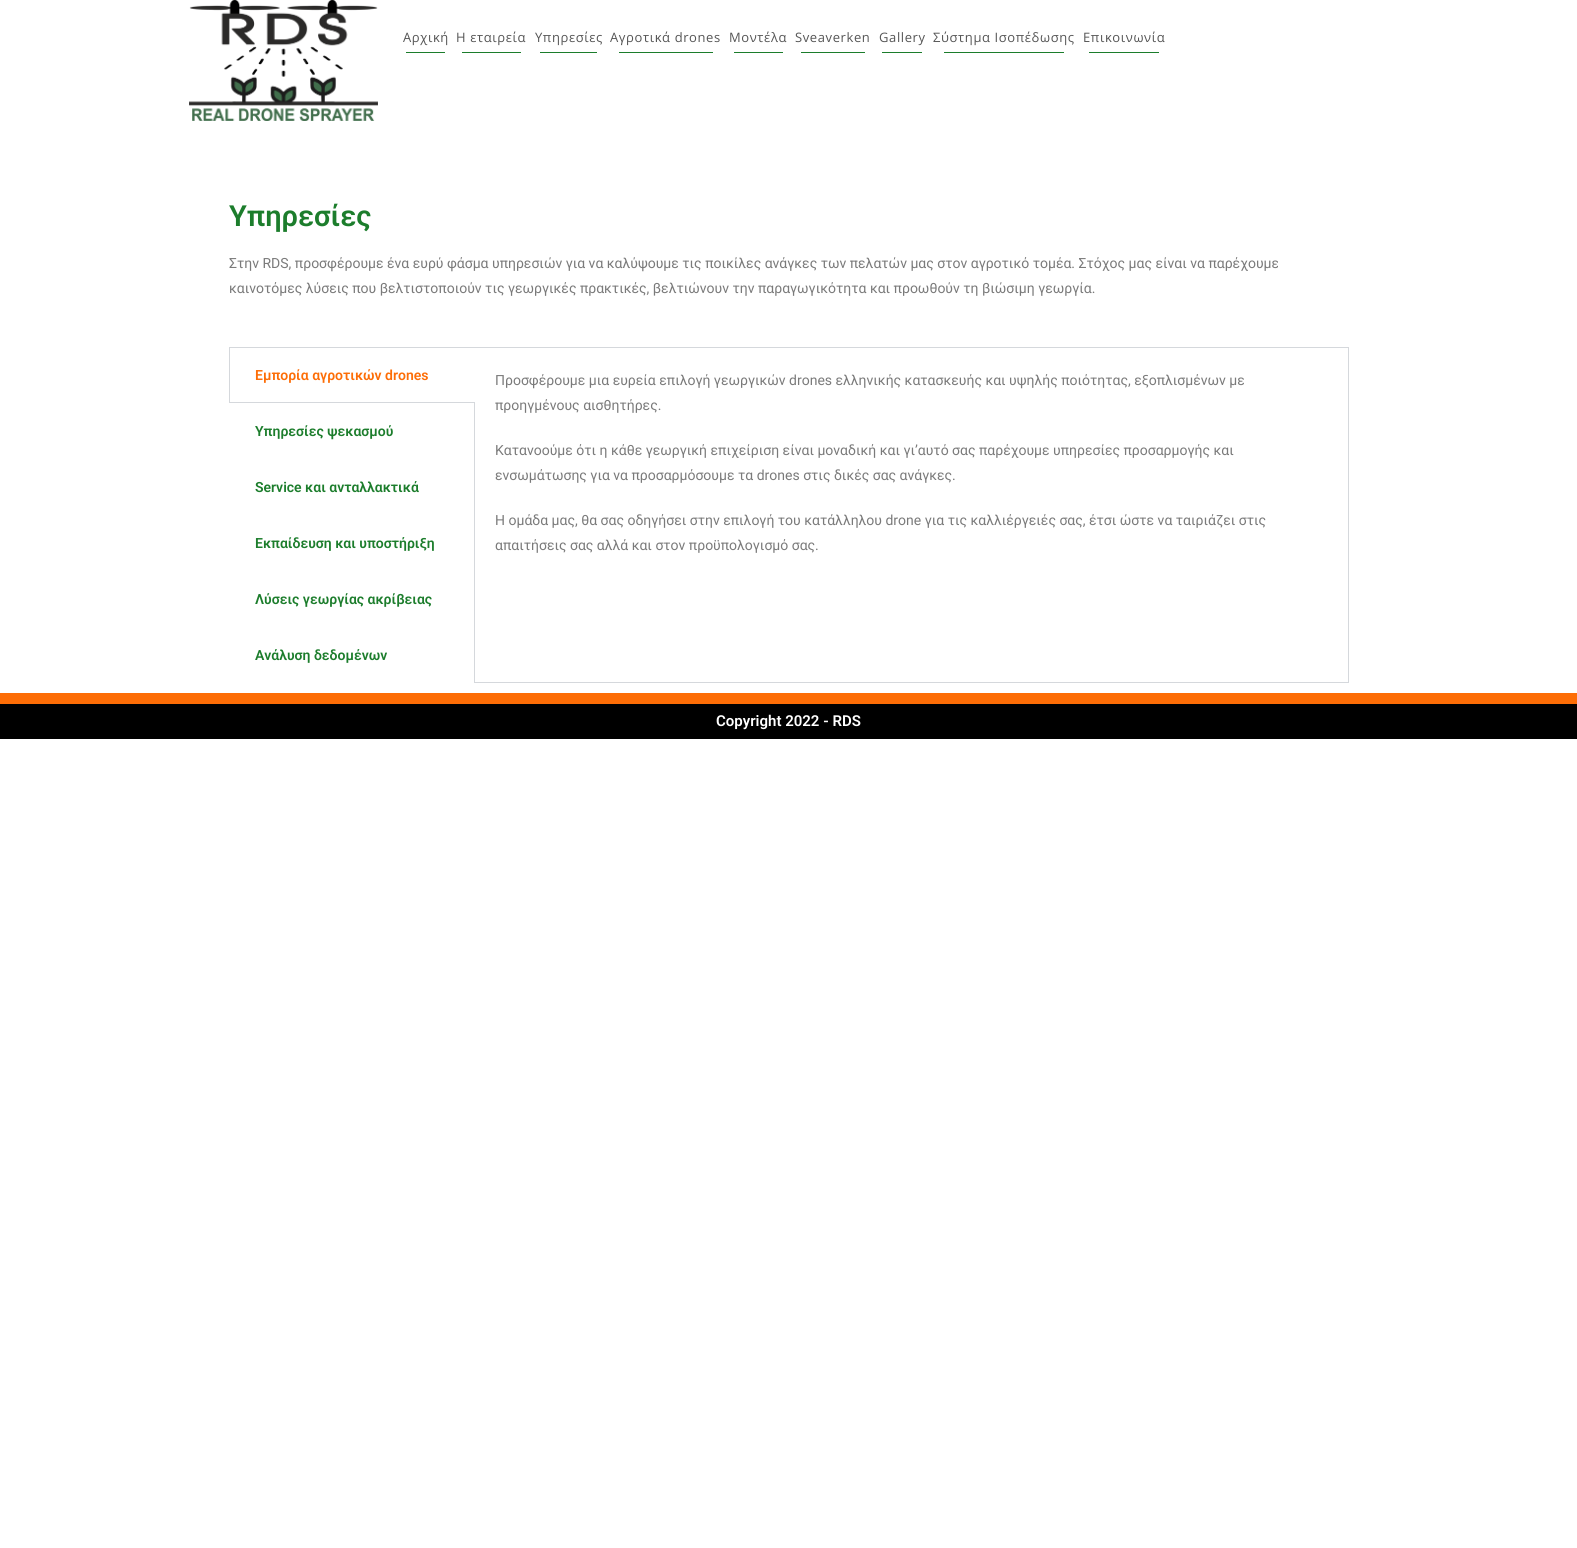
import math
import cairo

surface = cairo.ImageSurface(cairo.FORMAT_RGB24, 1577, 1548)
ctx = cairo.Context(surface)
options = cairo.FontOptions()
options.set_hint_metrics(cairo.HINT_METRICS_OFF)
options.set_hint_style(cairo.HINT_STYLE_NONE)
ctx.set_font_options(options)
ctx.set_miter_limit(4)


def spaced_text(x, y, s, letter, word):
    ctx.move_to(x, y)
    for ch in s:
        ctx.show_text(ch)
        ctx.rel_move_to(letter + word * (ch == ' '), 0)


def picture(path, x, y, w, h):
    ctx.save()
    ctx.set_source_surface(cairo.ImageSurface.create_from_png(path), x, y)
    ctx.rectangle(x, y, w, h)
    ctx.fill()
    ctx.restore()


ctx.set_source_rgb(1, 1, 1)
ctx.paint()
picture("img1.png", 189, 0, 189, 121)
ctx.select_font_face("Open Sans")
ctx.set_font_size(13)
ctx.set_source_rgb(0.333, 0.333, 0.333)
spaced_text(403, 42, "Αρχική", 0.6, 0)
ctx.set_source_rgb(0.11, 0.49, 0.173)
ctx.rectangle(406, 52, 39, 1)
ctx.fill()
ctx.set_source_rgb(0.333, 0.333, 0.333)
spaced_text(456, 42, "Η εταιρεία", 0.6, 0)
ctx.set_source_rgb(0.11, 0.49, 0.173)
ctx.rectangle(462, 52, 59, 1)
ctx.fill()
ctx.set_source_rgb(0.333, 0.333, 0.333)
spaced_text(535, 42, "Υπηρεσίες", 0.6, 0)
ctx.set_source_rgb(0.11, 0.49, 0.173)
ctx.rectangle(540, 52, 57, 1)
ctx.fill()
ctx.set_source_rgb(0.333, 0.333, 0.333)
spaced_text(610, 42, "Αγροτικά drones", 0.6, 0)
ctx.set_source_rgb(0.11, 0.49, 0.173)
ctx.rectangle(619, 52, 94, 1)
ctx.fill()
ctx.set_source_rgb(0.333, 0.333, 0.333)
spaced_text(729, 42, "Μοντέλα", 0.6, 0)
ctx.set_source_rgb(0.11, 0.49, 0.173)
ctx.rectangle(734, 52, 49, 1)
ctx.fill()
ctx.set_source_rgb(0.333, 0.333, 0.333)
spaced_text(795, 42, "Sveaverken", 0.6, 0)
ctx.set_source_rgb(0.11, 0.49, 0.173)
ctx.rectangle(801, 52, 64, 1)
ctx.fill()
ctx.set_source_rgb(0.333, 0.333, 0.333)
spaced_text(879, 42, "Gallery", 0.6, 0)
ctx.set_source_rgb(0.11, 0.49, 0.173)
ctx.rectangle(882, 52, 40, 1)
ctx.fill()
ctx.set_source_rgb(0.333, 0.333, 0.333)
spaced_text(933, 42, "Σύστημα Ισοπέδωσης", 0.6, 0)
ctx.set_source_rgb(0.11, 0.49, 0.173)
ctx.rectangle(944, 52, 120, 1)
ctx.fill()
ctx.set_source_rgb(0.333, 0.333, 0.333)
spaced_text(1083, 42, "Επικοινωνία", 0.6, 0)
ctx.set_source_rgb(0.11, 0.49, 0.173)
ctx.rectangle(1089, 52, 70, 1)
ctx.fill()
ctx.select_font_face("Roboto SemiBold")
ctx.set_font_size(29)
ctx.move_to(229, 226)
ctx.show_text("Υπηρεσίες")
ctx.select_font_face("Roboto")
ctx.set_font_size(14)
ctx.set_source_rgb(0.478, 0.478, 0.478)
ctx.move_to(229, 268)
ctx.show_text("Στην RDS, προσφέρουμε ένα ευρύ φάσμα υπηρεσιών για να καλύψουμε τις ποικίλες ανάγκες των πελατών μας στον αγροτικό τομέα. Στόχος μας είναι να παρέχουμε")
ctx.move_to(229, 293)
ctx.show_text("καινοτόμες λύσεις που βελτιστοποιούν τις γεωργικές πρακτικές, βελτιώνουν την παραγωγικότητα και προωθούν τη βιώσιμη γεωργία.")
ctx.set_source_rgb(0.835, 0.847, 0.863)
ctx.rectangle(229, 402, 246, 1)
ctx.fill()
ctx.rectangle(229, 347, 1120, 1)
ctx.fill()
ctx.rectangle(229, 347, 1, 56)
ctx.fill()
ctx.select_font_face("Roboto SemiBold")
ctx.set_source_rgb(0.992, 0.427, 0.024)
ctx.move_to(255, 380)
ctx.show_text("Εμπορία αγροτικών drones")
ctx.set_source_rgb(0.835, 0.847, 0.863)
ctx.rectangle(474, 402, 1, 281)
ctx.fill()
ctx.set_source_rgb(0.11, 0.49, 0.173)
ctx.move_to(255, 436)
ctx.show_text("Υπηρεσίες ψεκασμού")
ctx.move_to(255, 492)
ctx.show_text("Service και ανταλλακτικά")
ctx.move_to(255, 548)
ctx.show_text("Εκπαίδευση και υποστήριξη")
ctx.move_to(255, 604)
ctx.show_text("Λύσεις γεωργίας ακρίβειας")
ctx.move_to(255, 660)
ctx.show_text("Ανάλυση δεδομένων")
ctx.set_source_rgb(0.835, 0.847, 0.863)
ctx.rectangle(1348, 347, 1, 336)
ctx.fill()
ctx.rectangle(475, 682, 874, 1)
ctx.fill()
ctx.select_font_face("Roboto")
ctx.set_source_rgb(0.478, 0.478, 0.478)
ctx.move_to(495, 385)
ctx.show_text("Προσφέρουμε μια ευρεία επιλογή γεωργικών drones ελληνικής κατασκευής και υψηλής ποιότητας, εξοπλισμένων με")
ctx.move_to(495, 410)
ctx.show_text("προηγμένους αισθητήρες.")
ctx.move_to(495, 455)
ctx.show_text("Κατανοούμε ότι η κάθε γεωργική επιχείριση είναι μοναδική και γι’αυτό σας παρέχουμε υπηρεσίες προσαρμογής και")
ctx.move_to(495, 480)
ctx.show_text("ενσωμάτωσης για να προσαρμόσουμε τα drones στις δικές σας ανάγκες.")
ctx.move_to(495, 525)
ctx.show_text("Η ομάδα μας, θα σας οδηγήσει στην επιλογή του κατάλληλου drone για τις καλλιέργειές σας, έτσι ώστε να ταιριάζει στις")
ctx.move_to(495, 550)
ctx.show_text("απαιτήσεις σας αλλά και στον προϋπολογισμό σας.")
ctx.set_source_rgb(0.992, 0.427, 0.024)
ctx.rectangle(0, 693, 1577, 11)
ctx.fill()
ctx.set_source_rgb(0, 0, 0)
ctx.rectangle(0, 704, 1577, 35)
ctx.fill()
ctx.select_font_face("Roboto SemiBold")
ctx.set_font_size(15)
ctx.set_source_rgb(1, 1, 1)
ctx.move_to(716, 726)
ctx.show_text("Copyright 2022 - RDS")
surface.write_to_png("page.png")
